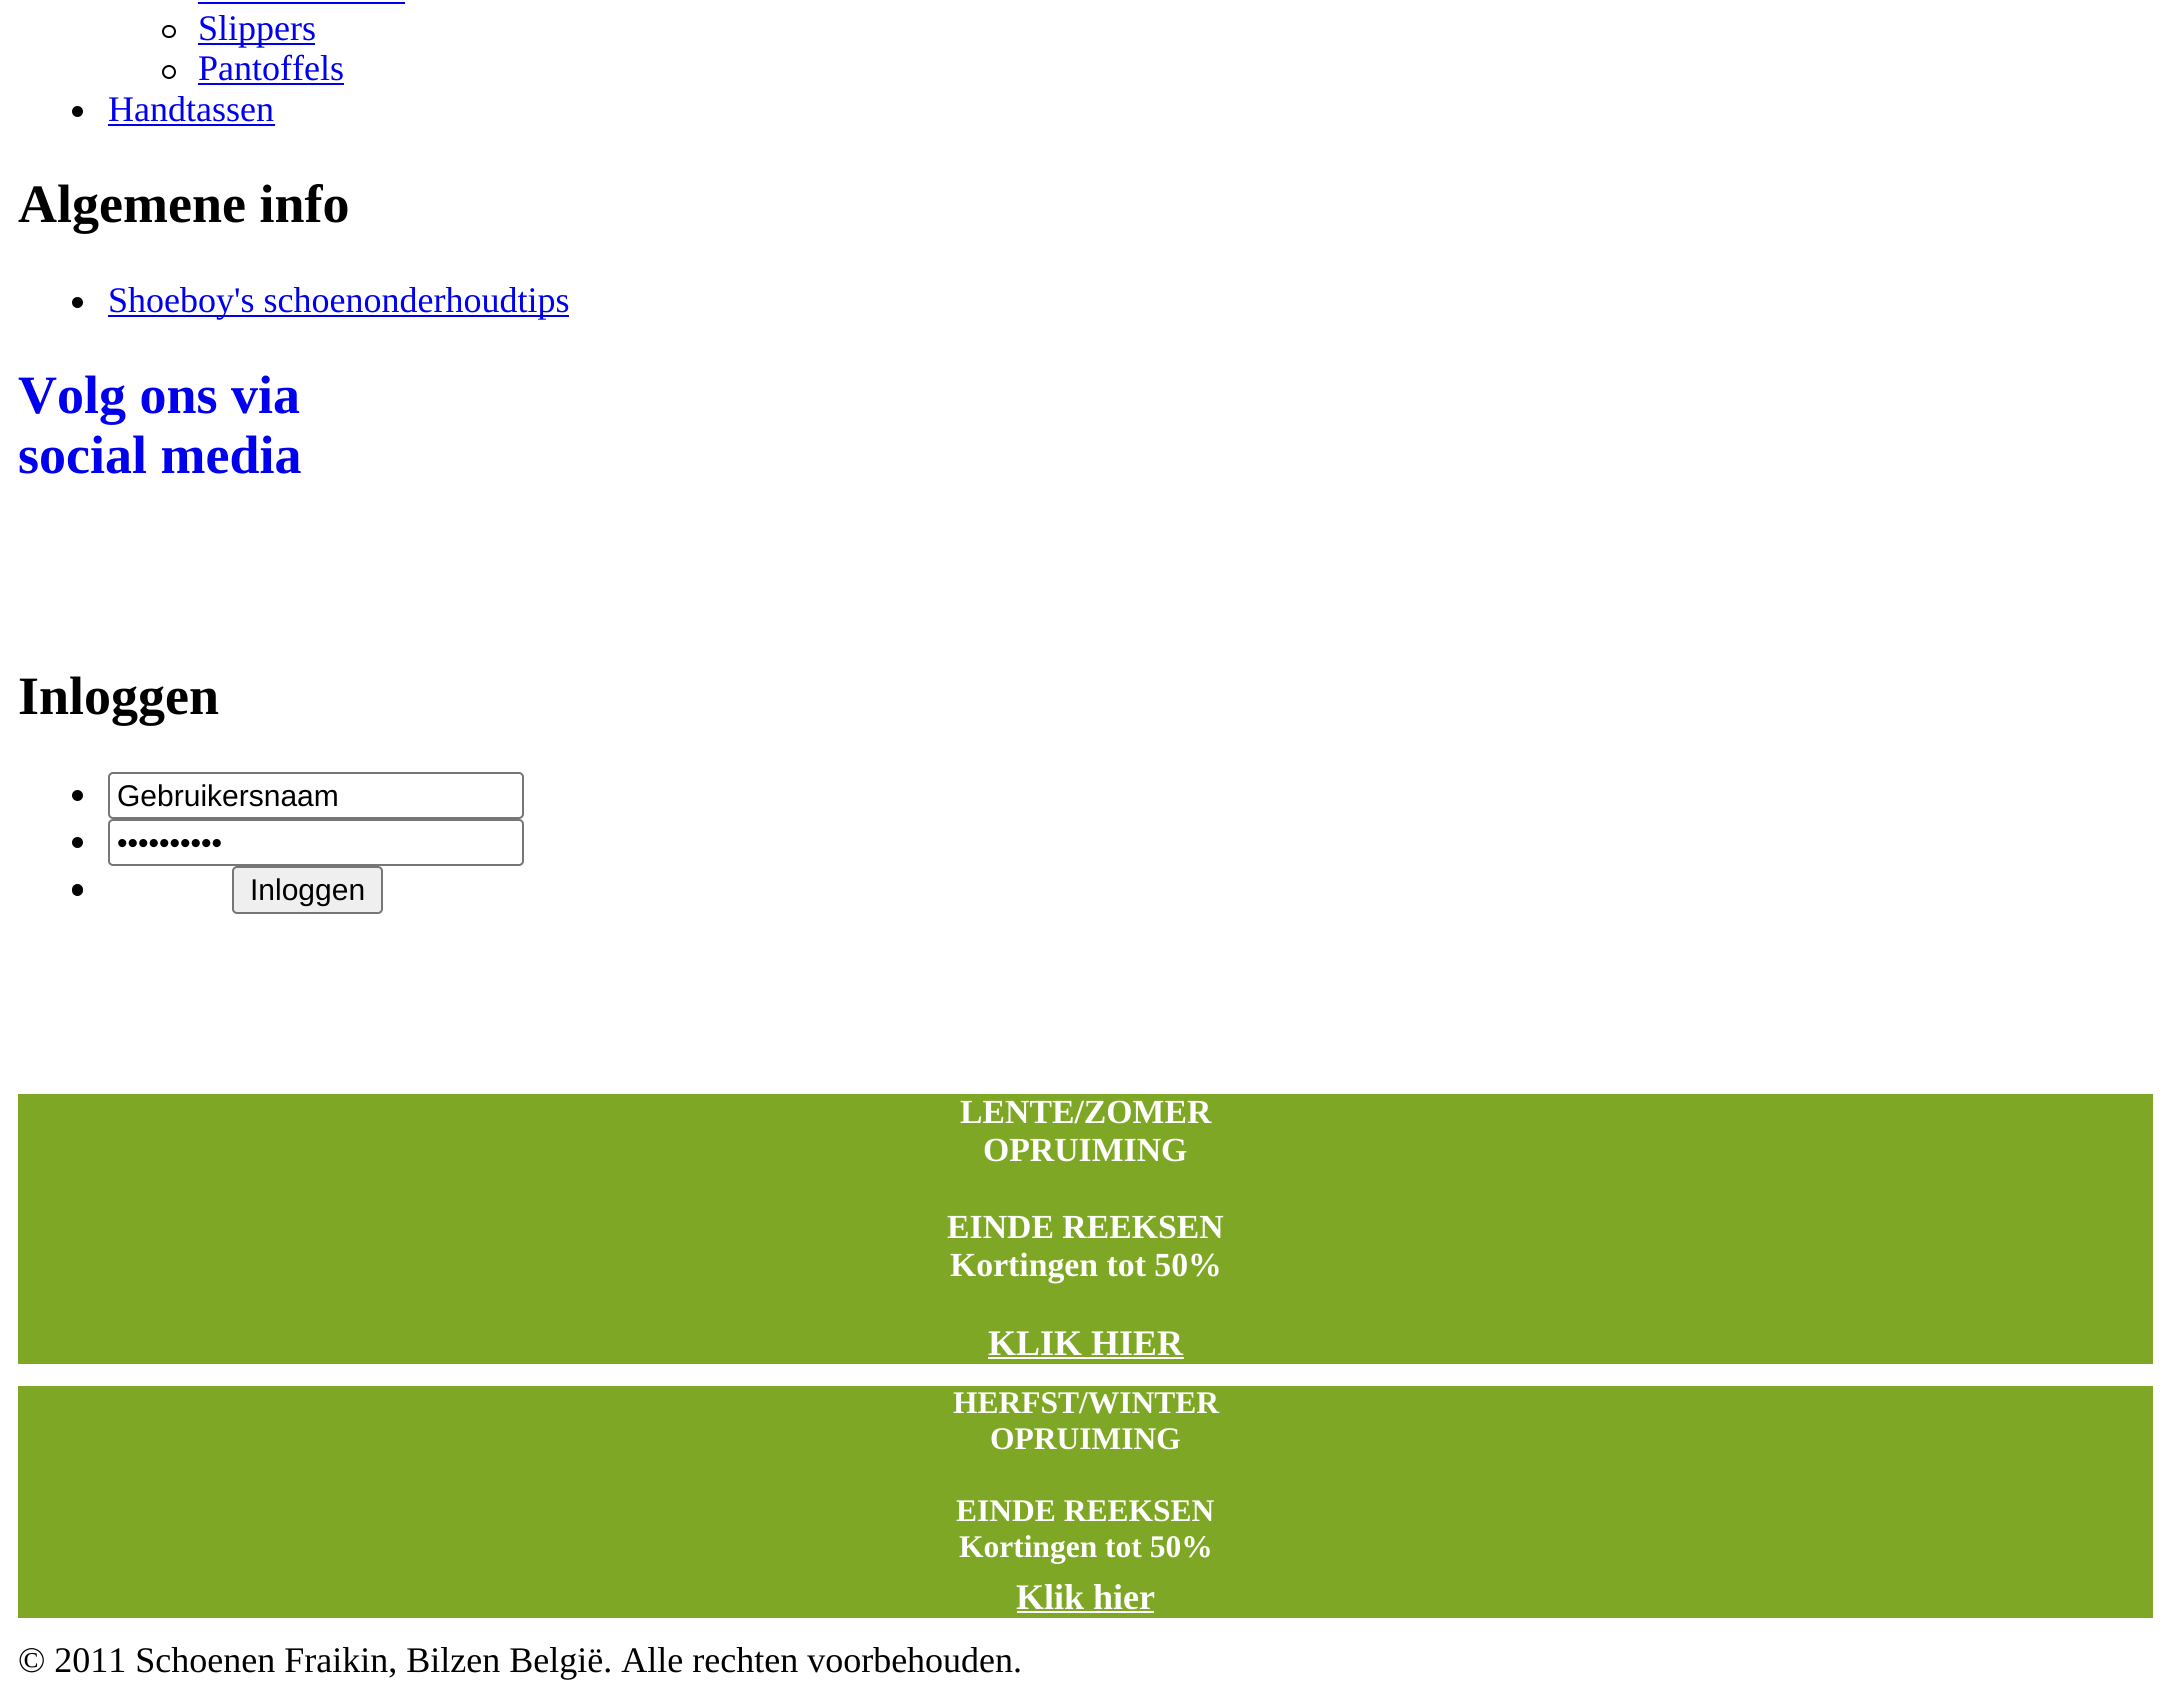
import math
import cairo

surface = cairo.ImageSurface(cairo.FORMAT_RGB24, 2171, 1697)
ctx = cairo.Context(surface)
options = cairo.FontOptions()
options.set_hint_metrics(cairo.HINT_METRICS_OFF)
options.set_hint_style(cairo.HINT_STYLE_NONE)
ctx.set_font_options(options)
ctx.set_miter_limit(4)


def round_rect(x, y, w, h, r):
    ctx.new_sub_path()
    for i, (u, v) in enumerate([(x + w - r, y + h - r), (x + r, y + h - r), (x + r, y + r), (x + w - r, y + r)]):
        ctx.arc(u, v, r, i * math.pi / 2, (i + 1) * math.pi / 2)
    ctx.close_path()


ctx.set_source_rgb(1, 1, 1)
ctx.paint()
ctx.set_source_rgb(0, 0, 0.933)
ctx.rectangle(198, 2, 207, 2)
ctx.fill()
round_rect(163, 26, 12, 11, 5.5)
ctx.set_source_rgb(0, 0, 0)
ctx.stroke()
ctx.set_source_rgb(0, 0, 0.933)
ctx.rectangle(198, 43, 117, 2)
ctx.fill()
ctx.select_font_face("Liberation Serif")
ctx.set_font_size(36)
ctx.move_to(198, 40)
ctx.show_text("Slippers")
ctx.new_path()
ctx.arc(169, 72, 6, 0, 2 * math.pi)
ctx.set_source_rgb(0, 0, 0)
ctx.stroke()
ctx.set_source_rgb(0, 0, 0.933)
ctx.move_to(198, 80)
ctx.show_text("Pantoffels")
ctx.rectangle(198, 83, 146, 2)
ctx.fill()
ctx.set_source_rgb(0, 0, 0)
ctx.arc(77.5, 111.5, 5.5, 0, 2 * math.pi)
ctx.fill()
ctx.set_source_rgb(0, 0, 0.933)
ctx.move_to(108, 121)
ctx.show_text("Handtassen")
ctx.rectangle(108, 124, 167, 2)
ctx.fill()
ctx.select_font_face("Liberation Serif", cairo.FONT_SLANT_NORMAL, cairo.FONT_WEIGHT_BOLD)
ctx.set_font_size(54)
ctx.set_source_rgb(0, 0, 0)
ctx.move_to(18, 222)
ctx.show_text("Algemene info")
ctx.new_path()
ctx.arc(77.5, 302.5, 5.5, 0, 2 * math.pi)
ctx.fill()
ctx.set_source_rgb(0, 0, 0.933)
ctx.rectangle(108, 315, 461, 2)
ctx.fill()
ctx.select_font_face("Liberation Serif")
ctx.set_font_size(36)
ctx.move_to(108, 312)
ctx.show_text("Shoeboy's schoenonderhoudtips")
ctx.select_font_face("Liberation Serif", cairo.FONT_SLANT_NORMAL, cairo.FONT_WEIGHT_BOLD)
ctx.set_font_size(54)
ctx.move_to(18, 413)
ctx.show_text("Volg ons via")
ctx.move_to(18, 473)
ctx.show_text("social media")
ctx.set_source_rgb(0, 0, 0)
ctx.move_to(18, 714)
ctx.show_text("Inloggen")
ctx.new_path()
ctx.arc(77.5, 795.5, 5.5, 0, 2 * math.pi)
ctx.fill()
round_rect(109, 773, 414, 45, 4)
ctx.set_source_rgb(0.463, 0.463, 0.463)
ctx.stroke()
ctx.select_font_face("Liberation Sans")
ctx.set_font_size(30)
ctx.set_source_rgb(0, 0, 0)
ctx.move_to(117, 806)
ctx.show_text("Gebruikersnaam")
ctx.new_path()
ctx.arc(77.5, 842.5, 5.5, 0, 2 * math.pi)
ctx.fill()
round_rect(109, 820, 414, 45, 4)
ctx.set_source_rgb(0.463, 0.463, 0.463)
ctx.stroke()
ctx.set_source_rgb(0, 0, 0)
ctx.move_to(117, 853)
ctx.show_text("••••••••••")
round_rect(72, 884, 11, 12, 5.5)
ctx.fill()
ctx.set_source_rgb(0.937, 0.937, 0.937)
round_rect(233, 867, 149, 46, 4)
ctx.fill_preserve()
ctx.set_source_rgb(0.463, 0.463, 0.463)
ctx.stroke()
ctx.set_source_rgb(0, 0, 0)
ctx.move_to(250, 900)
ctx.show_text("Inloggen")
ctx.set_source_rgb(0.498, 0.655, 0.149)
ctx.rectangle(18, 1094, 2135, 270)
ctx.fill()
ctx.select_font_face("Liberation Serif", cairo.FONT_SLANT_NORMAL, cairo.FONT_WEIGHT_BOLD)
ctx.set_font_size(33.75)
ctx.set_source_rgb(1, 1, 1)
ctx.move_to(960, 1123)
ctx.show_text("LENTE/ZOMER")
ctx.move_to(983, 1161)
ctx.show_text("OPRUIMING")
ctx.move_to(947, 1238)
ctx.show_text("EINDE REEKSEN")
ctx.move_to(950, 1276)
ctx.show_text("Kortingen tot 50%")
ctx.set_font_size(36)
ctx.move_to(988, 1355)
ctx.show_text("KLIK HIER")
ctx.rectangle(988, 1357, 196, 2)
ctx.fill()
ctx.set_source_rgb(0.498, 0.655, 0.149)
ctx.rectangle(18, 1386, 2135, 232)
ctx.fill()
ctx.set_font_size(31.5)
ctx.set_source_rgb(1, 1, 1)
ctx.move_to(953, 1413)
ctx.show_text("HERFST/WINTER")
ctx.move_to(990, 1449)
ctx.show_text("OPRUIMING")
ctx.move_to(956, 1521)
ctx.show_text("EINDE REEKSEN")
ctx.move_to(959, 1557)
ctx.show_text("Kortingen tot 50%")
ctx.set_font_size(36)
ctx.move_to(1016, 1609)
ctx.show_text("Klik hier")
ctx.rectangle(1017, 1611, 137, 2)
ctx.fill()
ctx.select_font_face("Liberation Serif")
ctx.set_source_rgb(0, 0, 0)
ctx.move_to(18, 1672)
ctx.show_text("© 2011 Schoenen Fraikin, Bilzen België. Alle rechten voorbehouden.")
surface.write_to_png("page.png")
